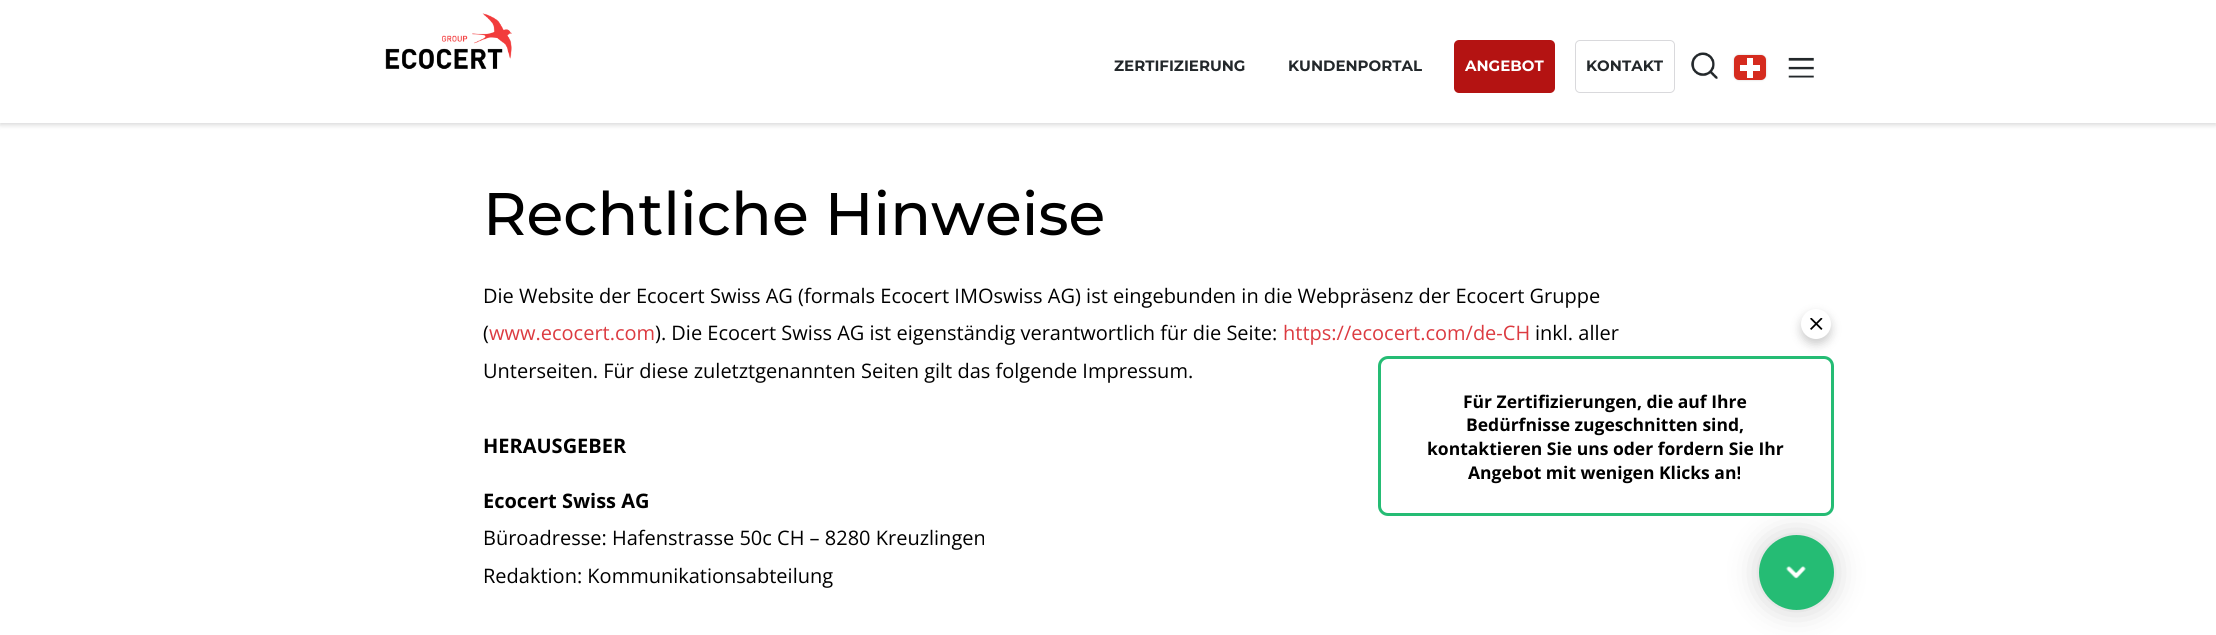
import math
import cairo

surface = cairo.ImageSurface(cairo.FORMAT_RGB24, 2216, 635)
ctx = cairo.Context(surface)
options = cairo.FontOptions()
options.set_hint_metrics(cairo.HINT_METRICS_OFF)
options.set_hint_style(cairo.HINT_STYLE_NONE)
ctx.set_font_options(options)
ctx.set_miter_limit(4)


def round_rect(x, y, w, h, r):
    ctx.new_sub_path()
    for i, (u, v) in enumerate([(x + w - r, y + h - r), (x + r, y + h - r), (x + r, y + r), (x + w - r, y + r)]):
        ctx.arc(u, v, r, i * math.pi / 2, (i + 1) * math.pi / 2)
    ctx.close_path()


def shadow(x, y, w, h, r, blur, alpha):
    ctx.push_group_with_content(cairo.CONTENT_ALPHA)
    ctx.set_operator(cairo.OPERATOR_SOURCE)
    for i in range(15, -16, -2):
        e = blur * i / 6
        if min(w, h) + 2 * e > 0:
            ctx.set_source_rgba(0, 0, 0, alpha * math.erfc((i - 1) / 8.5) / 2)
            round_rect(x - e, y - e, w + 2 * e, h + 2 * e, max(0, min(r + e + blur * .6, min(w, h) / 2 + e)))
            ctx.fill()
    ctx.mask(ctx.pop_group())


def picture(path, x, y, w, h):
    ctx.save()
    ctx.set_source_surface(cairo.ImageSurface.create_from_png(path), x, y)
    ctx.rectangle(x, y, w, h)
    ctx.fill()
    ctx.restore()


ctx.set_source_rgb(1, 1, 1)
ctx.paint()
ctx.set_source_rgb(0.137, 0.157, 0.169)
shadow(0, 3, 2216, 122, 0, 2.5, 0.18)
ctx.set_source_rgb(1, 1, 1)
ctx.rectangle(0, 0, 2216, 123)
ctx.fill()
picture("img1.png", 385, 13, 127, 56)
ctx.select_font_face("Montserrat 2 Thin")
ctx.set_font_size(15)
ctx.set_source_rgb(0.137, 0.157, 0.169)
ctx.move_to(1114, 71)
ctx.show_text("ZERTIFIZIERUNG")
ctx.move_to(1288, 71)
ctx.show_text("KUNDENPORTAL")
ctx.set_source_rgb(0.706, 0.078, 0.071)
round_rect(1454, 40, 101, 53, 5)
ctx.fill()
ctx.set_source_rgb(1, 1, 1)
ctx.move_to(1465, 71)
ctx.show_text("ANGEBOT")
round_rect(1575.5, 40.5, 99, 52, 4.5)
ctx.set_source_rgb(0.851, 0.851, 0.863)
ctx.set_line_width(1)
ctx.stroke()
ctx.set_source_rgb(0.137, 0.157, 0.169)
ctx.move_to(1586, 71)
ctx.show_text("KONTAKT")
picture("img2.png", 1691, 52, 27, 27)
ctx.set_source_rgb(0.827, 0.827, 0.827)
shadow(1734, 55, 32, 25, 5, 1, 1)
ctx.save()
round_rect(1734, 55, 32, 25, 4)
ctx.clip()
ctx.set_source_rgb(0.835, 0.169, 0.118)
round_rect(1734, 55, 32, 25, 5)
ctx.fill()
ctx.restore()
ctx.set_source_rgb(1, 1, 1)
ctx.rectangle(1740, 65, 20, 6)
ctx.fill()
ctx.rectangle(1747, 58, 6, 20)
ctx.fill()
picture("img3.png", 1788, 57, 26, 21)
ctx.select_font_face("Montserrat Thin")
ctx.set_font_size(60)
ctx.set_source_rgb(0, 0, 0)
ctx.move_to(483, 235)
ctx.show_text("Rechtliche Hinweise")
ctx.select_font_face("Open Sans")
ctx.set_font_size(20)
ctx.move_to(483, 303)
ctx.show_text("Die Website der Ecocert Swiss AG (formals Ecocert IMOswiss AG) ist eingebunden in die Webpräsenz der Ecocert Gruppe")
ctx.move_to(483, 340)
ctx.show_text("(")
ctx.set_source_rgb(0.863, 0.231, 0.255)
ctx.move_to(489, 340)
ctx.show_text("www.ecocert.com")
ctx.set_source_rgb(0, 0, 0)
ctx.move_to(655, 340)
ctx.show_text("). Die Ecocert Swiss AG ist eigenständig verantwortlich für die Seite:")
ctx.set_source_rgb(0.863, 0.231, 0.255)
ctx.move_to(1283, 340)
ctx.show_text("https://ecocert.com/de-CH")
ctx.set_source_rgb(0, 0, 0)
ctx.move_to(1535, 340)
ctx.show_text("inkl. aller")
ctx.move_to(483, 378)
ctx.show_text("Unterseiten. Für diese zuletztgenannten Seiten gilt das folgende Impressum.")
ctx.select_font_face("Open Sans", cairo.FONT_SLANT_NORMAL, cairo.FONT_WEIGHT_BOLD)
ctx.move_to(483, 453)
ctx.show_text("HERAUSGEBER")
ctx.move_to(483, 508)
ctx.show_text("Ecocert Swiss AG")
ctx.select_font_face("Open Sans")
ctx.move_to(483, 545)
ctx.show_text("Büroadresse: Hafenstrasse 50c CH – 8280 Kreuzlingen")
ctx.move_to(483, 583)
ctx.show_text("Redaktion: Kommunikationsabteilung")
ctx.set_source_rgb(0, 0, 0)
shadow(1759, 535, 75, 75, 37.5, 15, 0.19)
ctx.set_source_rgb(1, 1, 1)
round_rect(1379.5, 357.5, 453, 157, 8.5)
ctx.fill_preserve()
ctx.set_source_rgb(0.145, 0.737, 0.455)
ctx.set_line_width(3)
ctx.stroke()
ctx.set_source_rgb(0, 0, 0)
shadow(1801, 314, 30, 30, 15, 5, 0.2)
ctx.set_source_rgb(1, 1, 1)
ctx.arc(1816, 324, 15, 0, 2 * math.pi)
ctx.fill()
picture("img4.png", 1810, 318, 13, 12)
ctx.select_font_face("Open Sans", cairo.FONT_SLANT_NORMAL, cairo.FONT_WEIGHT_BOLD)
ctx.set_font_size(17.5)
ctx.set_source_rgb(0, 0, 0)
ctx.move_to(1463, 408)
ctx.show_text("Für Zertifizierungen, die auf Ihre")
ctx.move_to(1466, 431)
ctx.show_text("Bedürfnisse zugeschnitten sind,")
ctx.move_to(1427, 455)
ctx.show_text("kontaktieren Sie uns oder fordern Sie Ihr")
ctx.move_to(1468, 479)
ctx.show_text("Angebot mit wenigen Klicks an!")
ctx.set_source_rgb(0.145, 0.737, 0.455)
ctx.new_path()
ctx.arc(1796.5, 572.5, 37.5, 0, 2 * math.pi)
ctx.fill()
picture("img5.png", 1785, 566, 21, 13)
surface.write_to_png("page.png")
